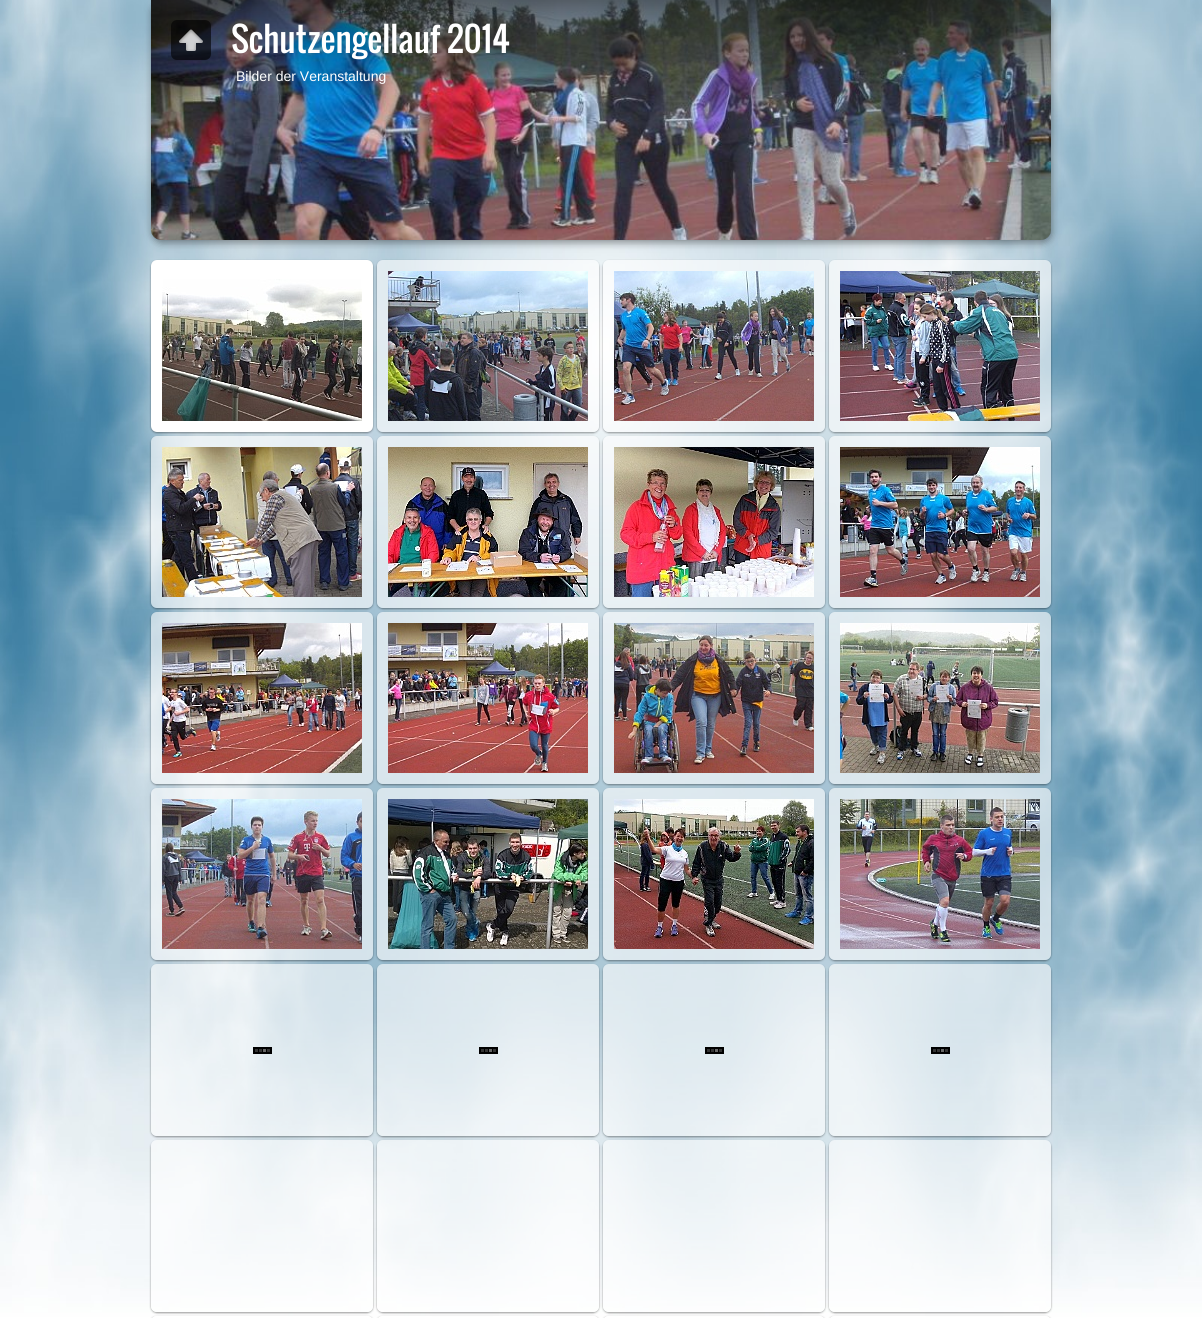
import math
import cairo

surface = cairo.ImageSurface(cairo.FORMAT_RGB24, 1202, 1318)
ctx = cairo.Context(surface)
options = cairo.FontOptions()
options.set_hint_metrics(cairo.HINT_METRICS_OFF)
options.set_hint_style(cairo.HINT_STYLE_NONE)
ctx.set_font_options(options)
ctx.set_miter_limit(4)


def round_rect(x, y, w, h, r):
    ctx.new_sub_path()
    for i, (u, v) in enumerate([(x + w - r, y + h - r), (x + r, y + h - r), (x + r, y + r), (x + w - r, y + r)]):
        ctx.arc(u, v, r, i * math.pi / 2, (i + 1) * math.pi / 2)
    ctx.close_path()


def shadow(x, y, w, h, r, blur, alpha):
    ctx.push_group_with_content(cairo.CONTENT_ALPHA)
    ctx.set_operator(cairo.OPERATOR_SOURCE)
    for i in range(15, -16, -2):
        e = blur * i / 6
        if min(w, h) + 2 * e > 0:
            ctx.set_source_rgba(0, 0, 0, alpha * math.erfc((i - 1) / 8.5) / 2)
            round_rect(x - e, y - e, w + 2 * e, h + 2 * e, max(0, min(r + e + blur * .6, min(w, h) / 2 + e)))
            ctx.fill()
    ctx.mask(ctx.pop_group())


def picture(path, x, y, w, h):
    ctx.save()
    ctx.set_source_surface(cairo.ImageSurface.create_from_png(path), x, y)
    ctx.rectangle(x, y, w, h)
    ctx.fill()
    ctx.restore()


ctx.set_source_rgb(1, 1, 1)
ctx.paint()
picture("img1.png", 0, 0, 1202, 1318)
ctx.set_source_rgb(0, 0, 0)
shadow(152, 3, 900, 240, 10, 4, 0.4)
ctx.set_source_rgba(0, 0, 0, 0.2)
ctx.new_path()
ctx.move_to(151, 0)
ctx.line_to(1051, 0)
ctx.line_to(1051, 230)
ctx.curve_to(1051, 235.5, 1046.5, 240, 1041, 240)
ctx.line_to(161, 240)
ctx.curve_to(155.5, 240, 151, 235.5, 151, 230)
ctx.close_path()
ctx.fill()
picture("img2.png", 151, 0, 900, 240)
ctx.set_source_rgba(0, 0, 0, 0.6)
round_rect(171, 20, 40, 40, 6)
ctx.fill()
picture("img3.png", 179, 29, 24, 22)
ctx.select_font_face("Oswald")
ctx.set_font_size(33.5)
ctx.set_source_rgb(1, 1, 1)
ctx.move_to(231, 53)
ctx.show_text("Schutzengellauf 2014")
ctx.select_font_face("Liberation Sans")
ctx.set_font_size(14)
ctx.move_to(236, 81)
ctx.show_text("Bilder der Veranstaltung")
ctx.set_source_rgb(0, 0, 0)
shadow(151, 261, 222, 172, 6, 1, 0.4)
ctx.set_source_rgb(1, 1, 1)
round_rect(151, 260, 222, 172, 6)
ctx.fill()
picture("img4.png", 162, 279, 200, 142)
ctx.save()
ctx.set_fill_rule(cairo.FILL_RULE_EVEN_ODD)
ctx.new_path()
ctx.move_to(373, 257)
ctx.line_to(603, 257)
ctx.line_to(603, 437)
ctx.line_to(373, 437)
ctx.close_path()
ctx.move_to(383, 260)
ctx.line_to(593, 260)
ctx.curve_to(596.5, 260, 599, 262.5, 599, 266)
ctx.line_to(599, 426)
ctx.curve_to(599, 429.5, 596.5, 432, 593, 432)
ctx.line_to(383, 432)
ctx.curve_to(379.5, 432, 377, 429.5, 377, 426)
ctx.line_to(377, 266)
ctx.curve_to(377, 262.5, 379.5, 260, 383, 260)
ctx.close_path()
ctx.clip()
ctx.set_source_rgb(0, 0, 0)
shadow(377, 261, 222, 172, 6, 1, 0.4)
ctx.restore()
ctx.set_source_rgba(1, 1, 1, 0.6)
round_rect(377, 260, 222, 172, 6)
ctx.fill()
picture("img5.png", 388, 271, 200, 150)
ctx.save()
ctx.set_fill_rule(cairo.FILL_RULE_EVEN_ODD)
ctx.new_path()
ctx.move_to(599, 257)
ctx.line_to(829, 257)
ctx.line_to(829, 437)
ctx.line_to(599, 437)
ctx.close_path()
ctx.move_to(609, 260)
ctx.line_to(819, 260)
ctx.curve_to(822.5, 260, 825, 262.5, 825, 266)
ctx.line_to(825, 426)
ctx.curve_to(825, 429.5, 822.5, 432, 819, 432)
ctx.line_to(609, 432)
ctx.curve_to(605.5, 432, 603, 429.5, 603, 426)
ctx.line_to(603, 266)
ctx.curve_to(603, 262.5, 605.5, 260, 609, 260)
ctx.close_path()
ctx.clip()
ctx.set_source_rgb(0, 0, 0)
shadow(603, 261, 222, 172, 6, 1, 0.4)
ctx.restore()
round_rect(603, 260, 222, 172, 6)
ctx.fill()
picture("img6.png", 614, 271, 200, 150)
ctx.save()
ctx.set_fill_rule(cairo.FILL_RULE_EVEN_ODD)
ctx.new_path()
ctx.move_to(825, 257)
ctx.line_to(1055, 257)
ctx.line_to(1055, 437)
ctx.line_to(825, 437)
ctx.close_path()
ctx.move_to(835, 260)
ctx.line_to(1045, 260)
ctx.curve_to(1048.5, 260, 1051, 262.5, 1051, 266)
ctx.line_to(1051, 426)
ctx.curve_to(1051, 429.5, 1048.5, 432, 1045, 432)
ctx.line_to(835, 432)
ctx.curve_to(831.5, 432, 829, 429.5, 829, 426)
ctx.line_to(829, 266)
ctx.curve_to(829, 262.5, 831.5, 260, 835, 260)
ctx.close_path()
ctx.clip()
ctx.set_source_rgb(0, 0, 0)
shadow(829, 261, 222, 172, 6, 1, 0.4)
ctx.restore()
round_rect(829, 260, 222, 172, 6)
ctx.fill()
picture("img7.png", 840, 271, 200, 150)
ctx.save()
ctx.set_fill_rule(cairo.FILL_RULE_EVEN_ODD)
ctx.new_path()
ctx.move_to(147, 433)
ctx.line_to(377, 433)
ctx.line_to(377, 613)
ctx.line_to(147, 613)
ctx.close_path()
ctx.move_to(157, 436)
ctx.line_to(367, 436)
ctx.curve_to(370.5, 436, 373, 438.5, 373, 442)
ctx.line_to(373, 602)
ctx.curve_to(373, 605.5, 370.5, 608, 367, 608)
ctx.line_to(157, 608)
ctx.curve_to(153.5, 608, 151, 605.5, 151, 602)
ctx.line_to(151, 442)
ctx.curve_to(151, 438.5, 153.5, 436, 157, 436)
ctx.close_path()
ctx.clip()
ctx.set_source_rgb(0, 0, 0)
shadow(151, 437, 222, 172, 6, 1, 0.4)
ctx.restore()
round_rect(151, 436, 222, 172, 6)
ctx.fill()
picture("img8.png", 162, 447, 200, 150)
ctx.save()
ctx.set_fill_rule(cairo.FILL_RULE_EVEN_ODD)
ctx.new_path()
ctx.move_to(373, 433)
ctx.line_to(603, 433)
ctx.line_to(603, 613)
ctx.line_to(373, 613)
ctx.close_path()
ctx.move_to(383, 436)
ctx.line_to(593, 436)
ctx.curve_to(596.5, 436, 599, 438.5, 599, 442)
ctx.line_to(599, 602)
ctx.curve_to(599, 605.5, 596.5, 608, 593, 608)
ctx.line_to(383, 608)
ctx.curve_to(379.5, 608, 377, 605.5, 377, 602)
ctx.line_to(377, 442)
ctx.curve_to(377, 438.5, 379.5, 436, 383, 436)
ctx.close_path()
ctx.clip()
ctx.set_source_rgb(0, 0, 0)
shadow(377, 437, 222, 172, 6, 1, 0.4)
ctx.restore()
round_rect(377, 436, 222, 172, 6)
ctx.fill()
picture("img9.png", 388, 447, 200, 150)
ctx.save()
ctx.set_fill_rule(cairo.FILL_RULE_EVEN_ODD)
ctx.new_path()
ctx.move_to(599, 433)
ctx.line_to(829, 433)
ctx.line_to(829, 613)
ctx.line_to(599, 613)
ctx.close_path()
ctx.move_to(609, 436)
ctx.line_to(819, 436)
ctx.curve_to(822.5, 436, 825, 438.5, 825, 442)
ctx.line_to(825, 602)
ctx.curve_to(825, 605.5, 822.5, 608, 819, 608)
ctx.line_to(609, 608)
ctx.curve_to(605.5, 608, 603, 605.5, 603, 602)
ctx.line_to(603, 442)
ctx.curve_to(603, 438.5, 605.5, 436, 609, 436)
ctx.close_path()
ctx.clip()
ctx.set_source_rgb(0, 0, 0)
shadow(603, 437, 222, 172, 6, 1, 0.4)
ctx.restore()
round_rect(603, 436, 222, 172, 6)
ctx.fill()
picture("img10.png", 614, 447, 200, 150)
ctx.save()
ctx.set_fill_rule(cairo.FILL_RULE_EVEN_ODD)
ctx.new_path()
ctx.move_to(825, 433)
ctx.line_to(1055, 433)
ctx.line_to(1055, 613)
ctx.line_to(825, 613)
ctx.close_path()
ctx.move_to(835, 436)
ctx.line_to(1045, 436)
ctx.curve_to(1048.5, 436, 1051, 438.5, 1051, 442)
ctx.line_to(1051, 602)
ctx.curve_to(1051, 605.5, 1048.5, 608, 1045, 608)
ctx.line_to(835, 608)
ctx.curve_to(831.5, 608, 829, 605.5, 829, 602)
ctx.line_to(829, 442)
ctx.curve_to(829, 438.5, 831.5, 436, 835, 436)
ctx.close_path()
ctx.clip()
ctx.set_source_rgb(0, 0, 0)
shadow(829, 437, 222, 172, 6, 1, 0.4)
ctx.restore()
round_rect(829, 436, 222, 172, 6)
ctx.fill()
picture("img11.png", 840, 447, 200, 150)
ctx.save()
ctx.set_fill_rule(cairo.FILL_RULE_EVEN_ODD)
ctx.new_path()
ctx.move_to(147, 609)
ctx.line_to(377, 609)
ctx.line_to(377, 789)
ctx.line_to(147, 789)
ctx.close_path()
ctx.move_to(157, 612)
ctx.line_to(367, 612)
ctx.curve_to(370.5, 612, 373, 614.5, 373, 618)
ctx.line_to(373, 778)
ctx.curve_to(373, 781.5, 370.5, 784, 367, 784)
ctx.line_to(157, 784)
ctx.curve_to(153.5, 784, 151, 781.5, 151, 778)
ctx.line_to(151, 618)
ctx.curve_to(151, 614.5, 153.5, 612, 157, 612)
ctx.close_path()
ctx.clip()
ctx.set_source_rgb(0, 0, 0)
shadow(151, 613, 222, 172, 6, 1, 0.4)
ctx.restore()
round_rect(151, 612, 222, 172, 6)
ctx.fill()
picture("img12.png", 162, 623, 200, 150)
ctx.save()
ctx.set_fill_rule(cairo.FILL_RULE_EVEN_ODD)
ctx.new_path()
ctx.move_to(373, 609)
ctx.line_to(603, 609)
ctx.line_to(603, 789)
ctx.line_to(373, 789)
ctx.close_path()
ctx.move_to(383, 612)
ctx.line_to(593, 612)
ctx.curve_to(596.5, 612, 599, 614.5, 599, 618)
ctx.line_to(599, 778)
ctx.curve_to(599, 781.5, 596.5, 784, 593, 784)
ctx.line_to(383, 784)
ctx.curve_to(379.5, 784, 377, 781.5, 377, 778)
ctx.line_to(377, 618)
ctx.curve_to(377, 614.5, 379.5, 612, 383, 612)
ctx.close_path()
ctx.clip()
ctx.set_source_rgb(0, 0, 0)
shadow(377, 613, 222, 172, 6, 1, 0.4)
ctx.restore()
round_rect(377, 612, 222, 172, 6)
ctx.fill()
picture("img13.png", 388, 623, 200, 150)
ctx.save()
ctx.set_fill_rule(cairo.FILL_RULE_EVEN_ODD)
ctx.new_path()
ctx.move_to(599, 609)
ctx.line_to(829, 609)
ctx.line_to(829, 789)
ctx.line_to(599, 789)
ctx.close_path()
ctx.move_to(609, 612)
ctx.line_to(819, 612)
ctx.curve_to(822.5, 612, 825, 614.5, 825, 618)
ctx.line_to(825, 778)
ctx.curve_to(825, 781.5, 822.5, 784, 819, 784)
ctx.line_to(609, 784)
ctx.curve_to(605.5, 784, 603, 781.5, 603, 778)
ctx.line_to(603, 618)
ctx.curve_to(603, 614.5, 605.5, 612, 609, 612)
ctx.close_path()
ctx.clip()
ctx.set_source_rgb(0, 0, 0)
shadow(603, 613, 222, 172, 6, 1, 0.4)
ctx.restore()
round_rect(603, 612, 222, 172, 6)
ctx.fill()
picture("img14.png", 614, 623, 200, 150)
ctx.save()
ctx.set_fill_rule(cairo.FILL_RULE_EVEN_ODD)
ctx.new_path()
ctx.move_to(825, 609)
ctx.line_to(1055, 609)
ctx.line_to(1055, 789)
ctx.line_to(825, 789)
ctx.close_path()
ctx.move_to(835, 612)
ctx.line_to(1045, 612)
ctx.curve_to(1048.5, 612, 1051, 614.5, 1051, 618)
ctx.line_to(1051, 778)
ctx.curve_to(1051, 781.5, 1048.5, 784, 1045, 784)
ctx.line_to(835, 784)
ctx.curve_to(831.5, 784, 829, 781.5, 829, 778)
ctx.line_to(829, 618)
ctx.curve_to(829, 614.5, 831.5, 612, 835, 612)
ctx.close_path()
ctx.clip()
ctx.set_source_rgb(0, 0, 0)
shadow(829, 613, 222, 172, 6, 1, 0.4)
ctx.restore()
round_rect(829, 612, 222, 172, 6)
ctx.fill()
picture("img15.png", 840, 623, 200, 150)
ctx.save()
ctx.set_fill_rule(cairo.FILL_RULE_EVEN_ODD)
ctx.new_path()
ctx.move_to(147, 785)
ctx.line_to(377, 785)
ctx.line_to(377, 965)
ctx.line_to(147, 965)
ctx.close_path()
ctx.move_to(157, 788)
ctx.line_to(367, 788)
ctx.curve_to(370.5, 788, 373, 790.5, 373, 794)
ctx.line_to(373, 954)
ctx.curve_to(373, 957.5, 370.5, 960, 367, 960)
ctx.line_to(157, 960)
ctx.curve_to(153.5, 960, 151, 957.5, 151, 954)
ctx.line_to(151, 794)
ctx.curve_to(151, 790.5, 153.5, 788, 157, 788)
ctx.close_path()
ctx.clip()
ctx.set_source_rgb(0, 0, 0)
shadow(151, 789, 222, 172, 6, 1, 0.4)
ctx.restore()
round_rect(151, 788, 222, 172, 6)
ctx.fill()
picture("img16.png", 162, 799, 200, 150)
ctx.save()
ctx.set_fill_rule(cairo.FILL_RULE_EVEN_ODD)
ctx.new_path()
ctx.move_to(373, 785)
ctx.line_to(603, 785)
ctx.line_to(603, 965)
ctx.line_to(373, 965)
ctx.close_path()
ctx.move_to(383, 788)
ctx.line_to(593, 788)
ctx.curve_to(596.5, 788, 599, 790.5, 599, 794)
ctx.line_to(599, 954)
ctx.curve_to(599, 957.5, 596.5, 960, 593, 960)
ctx.line_to(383, 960)
ctx.curve_to(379.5, 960, 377, 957.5, 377, 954)
ctx.line_to(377, 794)
ctx.curve_to(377, 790.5, 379.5, 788, 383, 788)
ctx.close_path()
ctx.clip()
ctx.set_source_rgb(0, 0, 0)
shadow(377, 789, 222, 172, 6, 1, 0.4)
ctx.restore()
round_rect(377, 788, 222, 172, 6)
ctx.fill()
picture("img17.png", 388, 799, 200, 150)
ctx.save()
ctx.set_fill_rule(cairo.FILL_RULE_EVEN_ODD)
ctx.new_path()
ctx.move_to(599, 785)
ctx.line_to(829, 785)
ctx.line_to(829, 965)
ctx.line_to(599, 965)
ctx.close_path()
ctx.move_to(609, 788)
ctx.line_to(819, 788)
ctx.curve_to(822.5, 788, 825, 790.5, 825, 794)
ctx.line_to(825, 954)
ctx.curve_to(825, 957.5, 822.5, 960, 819, 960)
ctx.line_to(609, 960)
ctx.curve_to(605.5, 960, 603, 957.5, 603, 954)
ctx.line_to(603, 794)
ctx.curve_to(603, 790.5, 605.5, 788, 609, 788)
ctx.close_path()
ctx.clip()
ctx.set_source_rgb(0, 0, 0)
shadow(603, 789, 222, 172, 6, 1, 0.4)
ctx.restore()
round_rect(603, 788, 222, 172, 6)
ctx.fill()
picture("img18.png", 614, 799, 200, 150)
ctx.save()
ctx.set_fill_rule(cairo.FILL_RULE_EVEN_ODD)
ctx.new_path()
ctx.move_to(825, 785)
ctx.line_to(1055, 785)
ctx.line_to(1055, 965)
ctx.line_to(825, 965)
ctx.close_path()
ctx.move_to(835, 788)
ctx.line_to(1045, 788)
ctx.curve_to(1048.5, 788, 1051, 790.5, 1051, 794)
ctx.line_to(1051, 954)
ctx.curve_to(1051, 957.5, 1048.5, 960, 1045, 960)
ctx.line_to(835, 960)
ctx.curve_to(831.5, 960, 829, 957.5, 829, 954)
ctx.line_to(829, 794)
ctx.curve_to(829, 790.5, 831.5, 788, 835, 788)
ctx.close_path()
ctx.clip()
ctx.set_source_rgb(0, 0, 0)
shadow(829, 789, 222, 172, 6, 1, 0.4)
ctx.restore()
round_rect(829, 788, 222, 172, 6)
ctx.fill()
picture("img19.png", 840, 799, 200, 150)
ctx.save()
ctx.set_fill_rule(cairo.FILL_RULE_EVEN_ODD)
ctx.new_path()
ctx.move_to(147, 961)
ctx.line_to(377, 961)
ctx.line_to(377, 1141)
ctx.line_to(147, 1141)
ctx.close_path()
ctx.move_to(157, 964)
ctx.line_to(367, 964)
ctx.curve_to(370.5, 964, 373, 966.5, 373, 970)
ctx.line_to(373, 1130)
ctx.curve_to(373, 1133.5, 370.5, 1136, 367, 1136)
ctx.line_to(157, 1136)
ctx.curve_to(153.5, 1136, 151, 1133.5, 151, 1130)
ctx.line_to(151, 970)
ctx.curve_to(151, 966.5, 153.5, 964, 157, 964)
ctx.close_path()
ctx.clip()
ctx.set_source_rgb(0, 0, 0)
shadow(151, 965, 222, 172, 6, 1, 0.4)
ctx.restore()
round_rect(151, 964, 222, 172, 6)
ctx.fill()
picture("img20.png", 253, 1047, 19, 7)
ctx.save()
ctx.set_fill_rule(cairo.FILL_RULE_EVEN_ODD)
ctx.new_path()
ctx.move_to(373, 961)
ctx.line_to(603, 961)
ctx.line_to(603, 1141)
ctx.line_to(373, 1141)
ctx.close_path()
ctx.move_to(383, 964)
ctx.line_to(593, 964)
ctx.curve_to(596.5, 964, 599, 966.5, 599, 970)
ctx.line_to(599, 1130)
ctx.curve_to(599, 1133.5, 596.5, 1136, 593, 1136)
ctx.line_to(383, 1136)
ctx.curve_to(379.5, 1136, 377, 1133.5, 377, 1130)
ctx.line_to(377, 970)
ctx.curve_to(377, 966.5, 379.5, 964, 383, 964)
ctx.close_path()
ctx.clip()
ctx.set_source_rgb(0, 0, 0)
shadow(377, 965, 222, 172, 6, 1, 0.4)
ctx.restore()
round_rect(377, 964, 222, 172, 6)
ctx.fill()
picture("img20.png", 479, 1047, 19, 7)
ctx.save()
ctx.set_fill_rule(cairo.FILL_RULE_EVEN_ODD)
ctx.new_path()
ctx.move_to(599, 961)
ctx.line_to(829, 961)
ctx.line_to(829, 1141)
ctx.line_to(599, 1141)
ctx.close_path()
ctx.move_to(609, 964)
ctx.line_to(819, 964)
ctx.curve_to(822.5, 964, 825, 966.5, 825, 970)
ctx.line_to(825, 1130)
ctx.curve_to(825, 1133.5, 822.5, 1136, 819, 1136)
ctx.line_to(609, 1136)
ctx.curve_to(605.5, 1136, 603, 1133.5, 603, 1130)
ctx.line_to(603, 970)
ctx.curve_to(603, 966.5, 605.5, 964, 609, 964)
ctx.close_path()
ctx.clip()
ctx.set_source_rgb(0, 0, 0)
shadow(603, 965, 222, 172, 6, 1, 0.4)
ctx.restore()
round_rect(603, 964, 222, 172, 6)
ctx.fill()
picture("img20.png", 705, 1047, 19, 7)
ctx.save()
ctx.set_fill_rule(cairo.FILL_RULE_EVEN_ODD)
ctx.new_path()
ctx.move_to(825, 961)
ctx.line_to(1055, 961)
ctx.line_to(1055, 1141)
ctx.line_to(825, 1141)
ctx.close_path()
ctx.move_to(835, 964)
ctx.line_to(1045, 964)
ctx.curve_to(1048.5, 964, 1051, 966.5, 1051, 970)
ctx.line_to(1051, 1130)
ctx.curve_to(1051, 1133.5, 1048.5, 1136, 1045, 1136)
ctx.line_to(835, 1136)
ctx.curve_to(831.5, 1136, 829, 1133.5, 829, 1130)
ctx.line_to(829, 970)
ctx.curve_to(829, 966.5, 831.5, 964, 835, 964)
ctx.close_path()
ctx.clip()
ctx.set_source_rgb(0, 0, 0)
shadow(829, 965, 222, 172, 6, 1, 0.4)
ctx.restore()
round_rect(829, 964, 222, 172, 6)
ctx.fill()
picture("img20.png", 931, 1047, 19, 7)
ctx.save()
ctx.set_fill_rule(cairo.FILL_RULE_EVEN_ODD)
ctx.new_path()
ctx.move_to(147, 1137)
ctx.line_to(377, 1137)
ctx.line_to(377, 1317)
ctx.line_to(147, 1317)
ctx.close_path()
ctx.move_to(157, 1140)
ctx.line_to(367, 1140)
ctx.curve_to(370.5, 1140, 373, 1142.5, 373, 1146)
ctx.line_to(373, 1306)
ctx.curve_to(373, 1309.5, 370.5, 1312, 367, 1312)
ctx.line_to(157, 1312)
ctx.curve_to(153.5, 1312, 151, 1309.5, 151, 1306)
ctx.line_to(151, 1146)
ctx.curve_to(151, 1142.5, 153.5, 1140, 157, 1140)
ctx.close_path()
ctx.clip()
ctx.set_source_rgb(0, 0, 0)
shadow(151, 1141, 222, 172, 6, 1, 0.4)
ctx.restore()
round_rect(151, 1140, 222, 172, 6)
ctx.fill()
ctx.save()
ctx.set_fill_rule(cairo.FILL_RULE_EVEN_ODD)
ctx.new_path()
ctx.move_to(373, 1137)
ctx.line_to(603, 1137)
ctx.line_to(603, 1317)
ctx.line_to(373, 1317)
ctx.close_path()
ctx.move_to(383, 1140)
ctx.line_to(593, 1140)
ctx.curve_to(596.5, 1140, 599, 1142.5, 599, 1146)
ctx.line_to(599, 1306)
ctx.curve_to(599, 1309.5, 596.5, 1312, 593, 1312)
ctx.line_to(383, 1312)
ctx.curve_to(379.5, 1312, 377, 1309.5, 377, 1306)
ctx.line_to(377, 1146)
ctx.curve_to(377, 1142.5, 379.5, 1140, 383, 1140)
ctx.close_path()
ctx.clip()
ctx.set_source_rgb(0, 0, 0)
shadow(377, 1141, 222, 172, 6, 1, 0.4)
ctx.restore()
round_rect(377, 1140, 222, 172, 6)
ctx.fill()
ctx.save()
ctx.set_fill_rule(cairo.FILL_RULE_EVEN_ODD)
ctx.new_path()
ctx.move_to(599, 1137)
ctx.line_to(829, 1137)
ctx.line_to(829, 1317)
ctx.line_to(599, 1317)
ctx.close_path()
ctx.move_to(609, 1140)
ctx.line_to(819, 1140)
ctx.curve_to(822.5, 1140, 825, 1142.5, 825, 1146)
ctx.line_to(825, 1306)
ctx.curve_to(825, 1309.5, 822.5, 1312, 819, 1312)
ctx.line_to(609, 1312)
ctx.curve_to(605.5, 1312, 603, 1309.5, 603, 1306)
ctx.line_to(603, 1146)
ctx.curve_to(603, 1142.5, 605.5, 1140, 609, 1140)
ctx.close_path()
ctx.clip()
ctx.set_source_rgb(0, 0, 0)
shadow(603, 1141, 222, 172, 6, 1, 0.4)
ctx.restore()
round_rect(603, 1140, 222, 172, 6)
ctx.fill()
ctx.save()
ctx.set_fill_rule(cairo.FILL_RULE_EVEN_ODD)
ctx.new_path()
ctx.move_to(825, 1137)
ctx.line_to(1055, 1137)
ctx.line_to(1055, 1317)
ctx.line_to(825, 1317)
ctx.close_path()
ctx.move_to(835, 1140)
ctx.line_to(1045, 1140)
ctx.curve_to(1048.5, 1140, 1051, 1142.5, 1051, 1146)
ctx.line_to(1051, 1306)
ctx.curve_to(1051, 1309.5, 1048.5, 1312, 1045, 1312)
ctx.line_to(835, 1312)
ctx.curve_to(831.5, 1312, 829, 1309.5, 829, 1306)
ctx.line_to(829, 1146)
ctx.curve_to(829, 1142.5, 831.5, 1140, 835, 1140)
ctx.close_path()
ctx.clip()
ctx.set_source_rgb(0, 0, 0)
shadow(829, 1141, 222, 172, 6, 1, 0.4)
ctx.restore()
round_rect(829, 1140, 222, 172, 6)
ctx.fill()
ctx.save()
ctx.set_fill_rule(cairo.FILL_RULE_EVEN_ODD)
ctx.new_path()
ctx.move_to(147, 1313)
ctx.line_to(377, 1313)
ctx.line_to(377, 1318)
ctx.line_to(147, 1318)
ctx.close_path()
ctx.move_to(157, 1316)
ctx.line_to(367, 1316)
ctx.curve_to(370.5, 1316, 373, 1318.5, 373, 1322)
ctx.line_to(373, 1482)
ctx.curve_to(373, 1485.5, 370.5, 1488, 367, 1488)
ctx.line_to(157, 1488)
ctx.curve_to(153.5, 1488, 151, 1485.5, 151, 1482)
ctx.line_to(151, 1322)
ctx.curve_to(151, 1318.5, 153.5, 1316, 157, 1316)
ctx.close_path()
ctx.clip()
ctx.set_source_rgb(0, 0, 0)
shadow(151, 1317, 222, 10, 6, 1, 0.4)
ctx.restore()
ctx.new_path()
ctx.move_to(157, 1316)
ctx.line_to(367, 1316)
ctx.curve_to(370.5, 1316, 373, 1318.5, 373, 1322)
ctx.line_to(373, 1318)
ctx.line_to(151, 1318)
ctx.line_to(151, 1322)
ctx.curve_to(151, 1318.5, 153.5, 1316, 157, 1316)
ctx.close_path()
ctx.fill()
ctx.save()
ctx.set_fill_rule(cairo.FILL_RULE_EVEN_ODD)
ctx.new_path()
ctx.move_to(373, 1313)
ctx.line_to(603, 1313)
ctx.line_to(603, 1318)
ctx.line_to(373, 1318)
ctx.close_path()
ctx.move_to(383, 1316)
ctx.line_to(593, 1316)
ctx.curve_to(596.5, 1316, 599, 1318.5, 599, 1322)
ctx.line_to(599, 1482)
ctx.curve_to(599, 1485.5, 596.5, 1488, 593, 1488)
ctx.line_to(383, 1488)
ctx.curve_to(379.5, 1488, 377, 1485.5, 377, 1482)
ctx.line_to(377, 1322)
ctx.curve_to(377, 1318.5, 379.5, 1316, 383, 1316)
ctx.close_path()
ctx.clip()
ctx.set_source_rgb(0, 0, 0)
shadow(377, 1317, 222, 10, 6, 1, 0.4)
ctx.restore()
ctx.new_path()
ctx.move_to(383, 1316)
ctx.line_to(593, 1316)
ctx.curve_to(596.5, 1316, 599, 1318.5, 599, 1322)
ctx.line_to(599, 1318)
ctx.line_to(377, 1318)
ctx.line_to(377, 1322)
ctx.curve_to(377, 1318.5, 379.5, 1316, 383, 1316)
ctx.close_path()
ctx.fill()
ctx.save()
ctx.set_fill_rule(cairo.FILL_RULE_EVEN_ODD)
ctx.new_path()
ctx.move_to(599, 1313)
ctx.line_to(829, 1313)
ctx.line_to(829, 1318)
ctx.line_to(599, 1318)
ctx.close_path()
ctx.move_to(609, 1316)
ctx.line_to(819, 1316)
ctx.curve_to(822.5, 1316, 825, 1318.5, 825, 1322)
ctx.line_to(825, 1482)
ctx.curve_to(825, 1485.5, 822.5, 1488, 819, 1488)
ctx.line_to(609, 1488)
ctx.curve_to(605.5, 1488, 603, 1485.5, 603, 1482)
ctx.line_to(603, 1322)
ctx.curve_to(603, 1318.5, 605.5, 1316, 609, 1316)
ctx.close_path()
ctx.clip()
ctx.set_source_rgb(0, 0, 0)
shadow(603, 1317, 222, 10, 6, 1, 0.4)
ctx.restore()
ctx.new_path()
ctx.move_to(609, 1316)
ctx.line_to(819, 1316)
ctx.curve_to(822.5, 1316, 825, 1318.5, 825, 1322)
ctx.line_to(825, 1318)
ctx.line_to(603, 1318)
ctx.line_to(603, 1322)
ctx.curve_to(603, 1318.5, 605.5, 1316, 609, 1316)
ctx.close_path()
ctx.fill()
ctx.save()
ctx.set_fill_rule(cairo.FILL_RULE_EVEN_ODD)
ctx.new_path()
ctx.move_to(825, 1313)
ctx.line_to(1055, 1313)
ctx.line_to(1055, 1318)
ctx.line_to(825, 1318)
ctx.close_path()
ctx.move_to(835, 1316)
ctx.line_to(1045, 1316)
ctx.curve_to(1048.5, 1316, 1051, 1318.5, 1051, 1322)
ctx.line_to(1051, 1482)
ctx.curve_to(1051, 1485.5, 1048.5, 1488, 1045, 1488)
ctx.line_to(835, 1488)
ctx.curve_to(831.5, 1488, 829, 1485.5, 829, 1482)
ctx.line_to(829, 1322)
ctx.curve_to(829, 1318.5, 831.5, 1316, 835, 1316)
ctx.close_path()
ctx.clip()
ctx.set_source_rgb(0, 0, 0)
shadow(829, 1317, 222, 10, 6, 1, 0.4)
ctx.restore()
ctx.new_path()
ctx.move_to(835, 1316)
ctx.line_to(1045, 1316)
ctx.curve_to(1048.5, 1316, 1051, 1318.5, 1051, 1322)
ctx.line_to(1051, 1318)
ctx.line_to(829, 1318)
ctx.line_to(829, 1322)
ctx.curve_to(829, 1318.5, 831.5, 1316, 835, 1316)
ctx.close_path()
ctx.fill()
surface.write_to_png("page.png")
